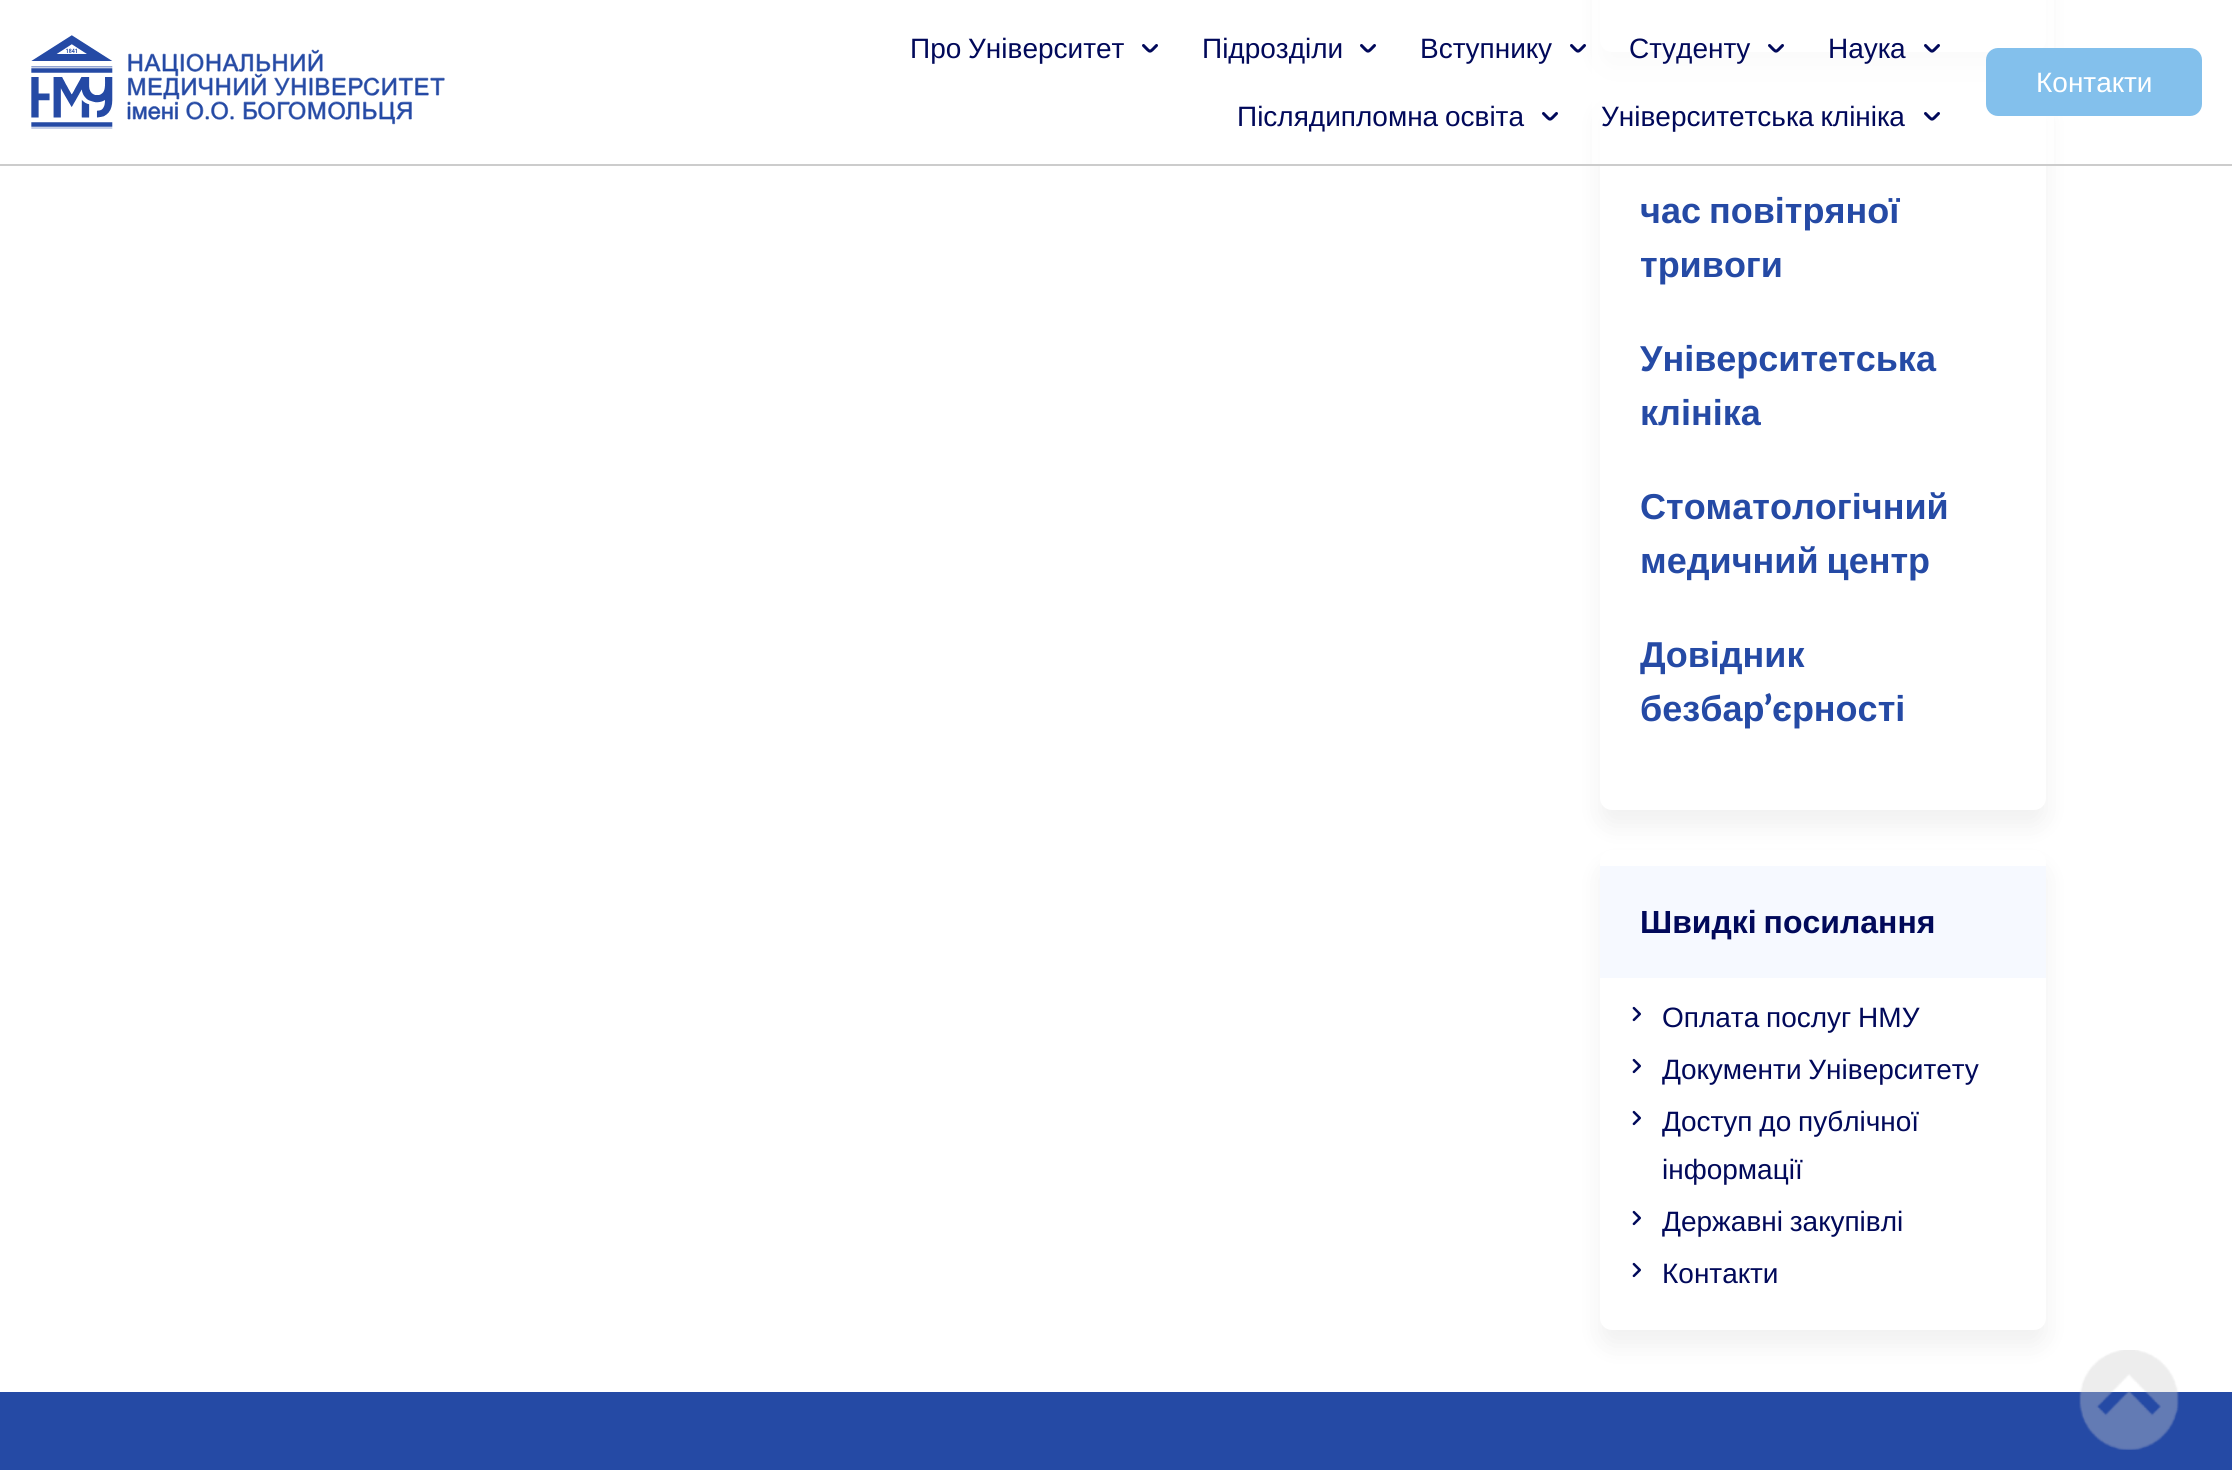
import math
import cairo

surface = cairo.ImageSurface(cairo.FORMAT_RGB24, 2232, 1470)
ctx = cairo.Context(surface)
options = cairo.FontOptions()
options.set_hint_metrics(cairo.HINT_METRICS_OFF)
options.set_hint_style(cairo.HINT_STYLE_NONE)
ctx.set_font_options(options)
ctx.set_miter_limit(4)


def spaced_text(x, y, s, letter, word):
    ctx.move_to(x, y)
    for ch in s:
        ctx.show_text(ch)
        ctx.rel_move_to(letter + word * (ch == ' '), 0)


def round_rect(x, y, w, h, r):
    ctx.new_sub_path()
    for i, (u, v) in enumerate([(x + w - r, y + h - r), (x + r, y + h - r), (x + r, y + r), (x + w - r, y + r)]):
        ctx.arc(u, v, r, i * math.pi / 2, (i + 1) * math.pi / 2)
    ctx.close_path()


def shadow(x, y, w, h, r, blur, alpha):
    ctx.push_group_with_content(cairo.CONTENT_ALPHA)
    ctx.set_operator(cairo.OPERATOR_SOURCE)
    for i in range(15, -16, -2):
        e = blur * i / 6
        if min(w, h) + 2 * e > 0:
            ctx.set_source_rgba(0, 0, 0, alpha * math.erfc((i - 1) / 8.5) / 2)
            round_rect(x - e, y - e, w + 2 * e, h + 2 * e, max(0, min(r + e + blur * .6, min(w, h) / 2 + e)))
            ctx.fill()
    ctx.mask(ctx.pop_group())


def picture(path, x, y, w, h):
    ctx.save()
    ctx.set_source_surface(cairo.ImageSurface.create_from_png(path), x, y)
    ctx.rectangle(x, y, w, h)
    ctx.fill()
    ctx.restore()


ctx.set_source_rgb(1, 1, 1)
ctx.paint()
ctx.set_source_rgb(0.267, 0.267, 0.267)
shadow(1600, -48, 446, 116, 12, 12, 0.08)
ctx.set_source_rgb(1, 1, 1)
round_rect(1600, -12, 446, 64, 12)
ctx.fill()
ctx.set_source_rgb(0.267, 0.267, 0.267)
shadow(1600, 108, 446, 718, 12, 12, 0.08)
ctx.set_source_rgb(1, 1, 1)
round_rect(1600, 92, 446, 718, 12)
ctx.fill()
ctx.set_source_rgba(1, 1, 1, 0.7)
ctx.rectangle(1592, 0, 462, 164)
ctx.fill()
ctx.set_source_rgb(0.8, 0.8, 0.8)
ctx.rectangle(0, 164, 2232, 2)
ctx.fill()
picture("img1.png", 31, 35, 414, 94)
ctx.select_font_face("Liberation Sans")
ctx.set_font_size(28)
ctx.set_source_rgb(0.004, 0.039, 0.353)
spaced_text(910, 58, "Про Університет", 0, -1)
ctx.new_path()
ctx.move_to(1156.5, 45.5)
ctx.curve_to(1149, 53, 1151, 53, 1143.5, 45.5)
ctx.set_line_width(3)
ctx.set_line_cap(cairo.LINE_CAP_ROUND)
ctx.set_line_join(cairo.LINE_JOIN_ROUND)
ctx.stroke()
ctx.move_to(1202, 58)
ctx.show_text("Підрозділи")
ctx.new_path()
ctx.move_to(1374.5, 45.5)
ctx.curve_to(1367, 53, 1369, 53, 1361.5, 45.5)
ctx.stroke()
ctx.move_to(1420, 58)
ctx.show_text("Вступнику")
ctx.new_path()
ctx.move_to(1584.5, 45.5)
ctx.curve_to(1577, 53, 1579, 53, 1571.5, 45.5)
ctx.stroke()
ctx.move_to(1629, 58)
ctx.show_text("Студенту")
ctx.new_path()
ctx.move_to(1782.5, 45.5)
ctx.curve_to(1775, 53, 1777, 53, 1769.5, 45.5)
ctx.stroke()
ctx.move_to(1828, 58)
ctx.show_text("Наука")
ctx.new_path()
ctx.move_to(1938.5, 45.5)
ctx.curve_to(1931, 53, 1933, 53, 1925.5, 45.5)
ctx.stroke()
ctx.set_source_rgb(0.514, 0.753, 0.925)
round_rect(1986, 48, 216, 68, 12)
ctx.fill()
ctx.set_source_rgb(1, 1, 1)
ctx.move_to(2036, 92)
ctx.show_text("Контакти")
ctx.set_source_rgb(0.004, 0.039, 0.353)
spaced_text(1237, 126, "Післядипломна освіта", 0, -1)
ctx.new_path()
ctx.move_to(1556.5, 113.5)
ctx.curve_to(1549, 121, 1551, 121, 1543.5, 113.5)
ctx.stroke()
spaced_text(1601, 126, "Університетська клініка", 0, -1)
ctx.new_path()
ctx.move_to(1938.5, 113.5)
ctx.curve_to(1931, 121, 1933, 121, 1925.5, 113.5)
ctx.stroke()
ctx.select_font_face("Liberation Sans", cairo.FONT_SLANT_NORMAL, cairo.FONT_WEIGHT_BOLD)
ctx.set_font_size(36)
ctx.set_source_rgb(0.145, 0.29, 0.647)
spaced_text(1640, 223, "час повітряної", 0, -2)
ctx.move_to(1640, 277)
ctx.show_text("тривоги")
ctx.move_to(1640, 371)
ctx.show_text("Університетська")
ctx.move_to(1640, 425)
ctx.show_text("клініка")
ctx.move_to(1640, 519)
ctx.show_text("Стоматологічний")
spaced_text(1640, 573, "медичний центр", 0, -2)
ctx.move_to(1640, 667)
ctx.show_text("Довідник")
ctx.move_to(1640, 721)
ctx.show_text("безбар")
ctx.select_font_face("Lato ExtraBold")
ctx.move_to(1764, 721)
ctx.show_text("’")
ctx.select_font_face("Liberation Sans", cairo.FONT_SLANT_NORMAL, cairo.FONT_WEIGHT_BOLD)
ctx.move_to(1772, 721)
ctx.show_text("єрності")
ctx.set_source_rgb(0.267, 0.267, 0.267)
shadow(1600, 866, 446, 480, 12, 12, 0.08)
ctx.set_source_rgb(1, 1, 1)
round_rect(1600, 850, 446, 480, 12)
ctx.fill()
ctx.set_source_rgb(0.961, 0.973, 1)
ctx.rectangle(1600, 866, 446, 112)
ctx.fill()
ctx.set_font_size(32)
ctx.set_source_rgb(0.004, 0.039, 0.353)
spaced_text(1640, 933, "Швидкі посилання", 0, -2)
picture("img2.png", 1632, 1006, 9, 16)
ctx.select_font_face("Liberation Sans")
ctx.set_font_size(28)
spaced_text(1662, 1027, "Оплата послуг НМУ", 0, -1)
picture("img2.png", 1632, 1058, 9, 16)
spaced_text(1662, 1079, "Документи Університету", 0, -1)
picture("img2.png", 1632, 1110, 9, 16)
spaced_text(1662, 1131, "Доступ до публічної", 0, -1)
ctx.move_to(1662, 1179)
ctx.show_text("інформації")
picture("img2.png", 1632, 1210, 9, 16)
spaced_text(1662, 1231, "Державні закупівлі", 0, -1)
picture("img2.png", 1632, 1262, 9, 16)
ctx.move_to(1662, 1283)
ctx.show_text("Контакти")
ctx.set_source_rgb(0.145, 0.29, 0.647)
ctx.rectangle(0, 1392, 2232, 78)
ctx.fill()
picture("img3.png", 2079, 1350, 100, 100)
surface.write_to_png("page.png")
